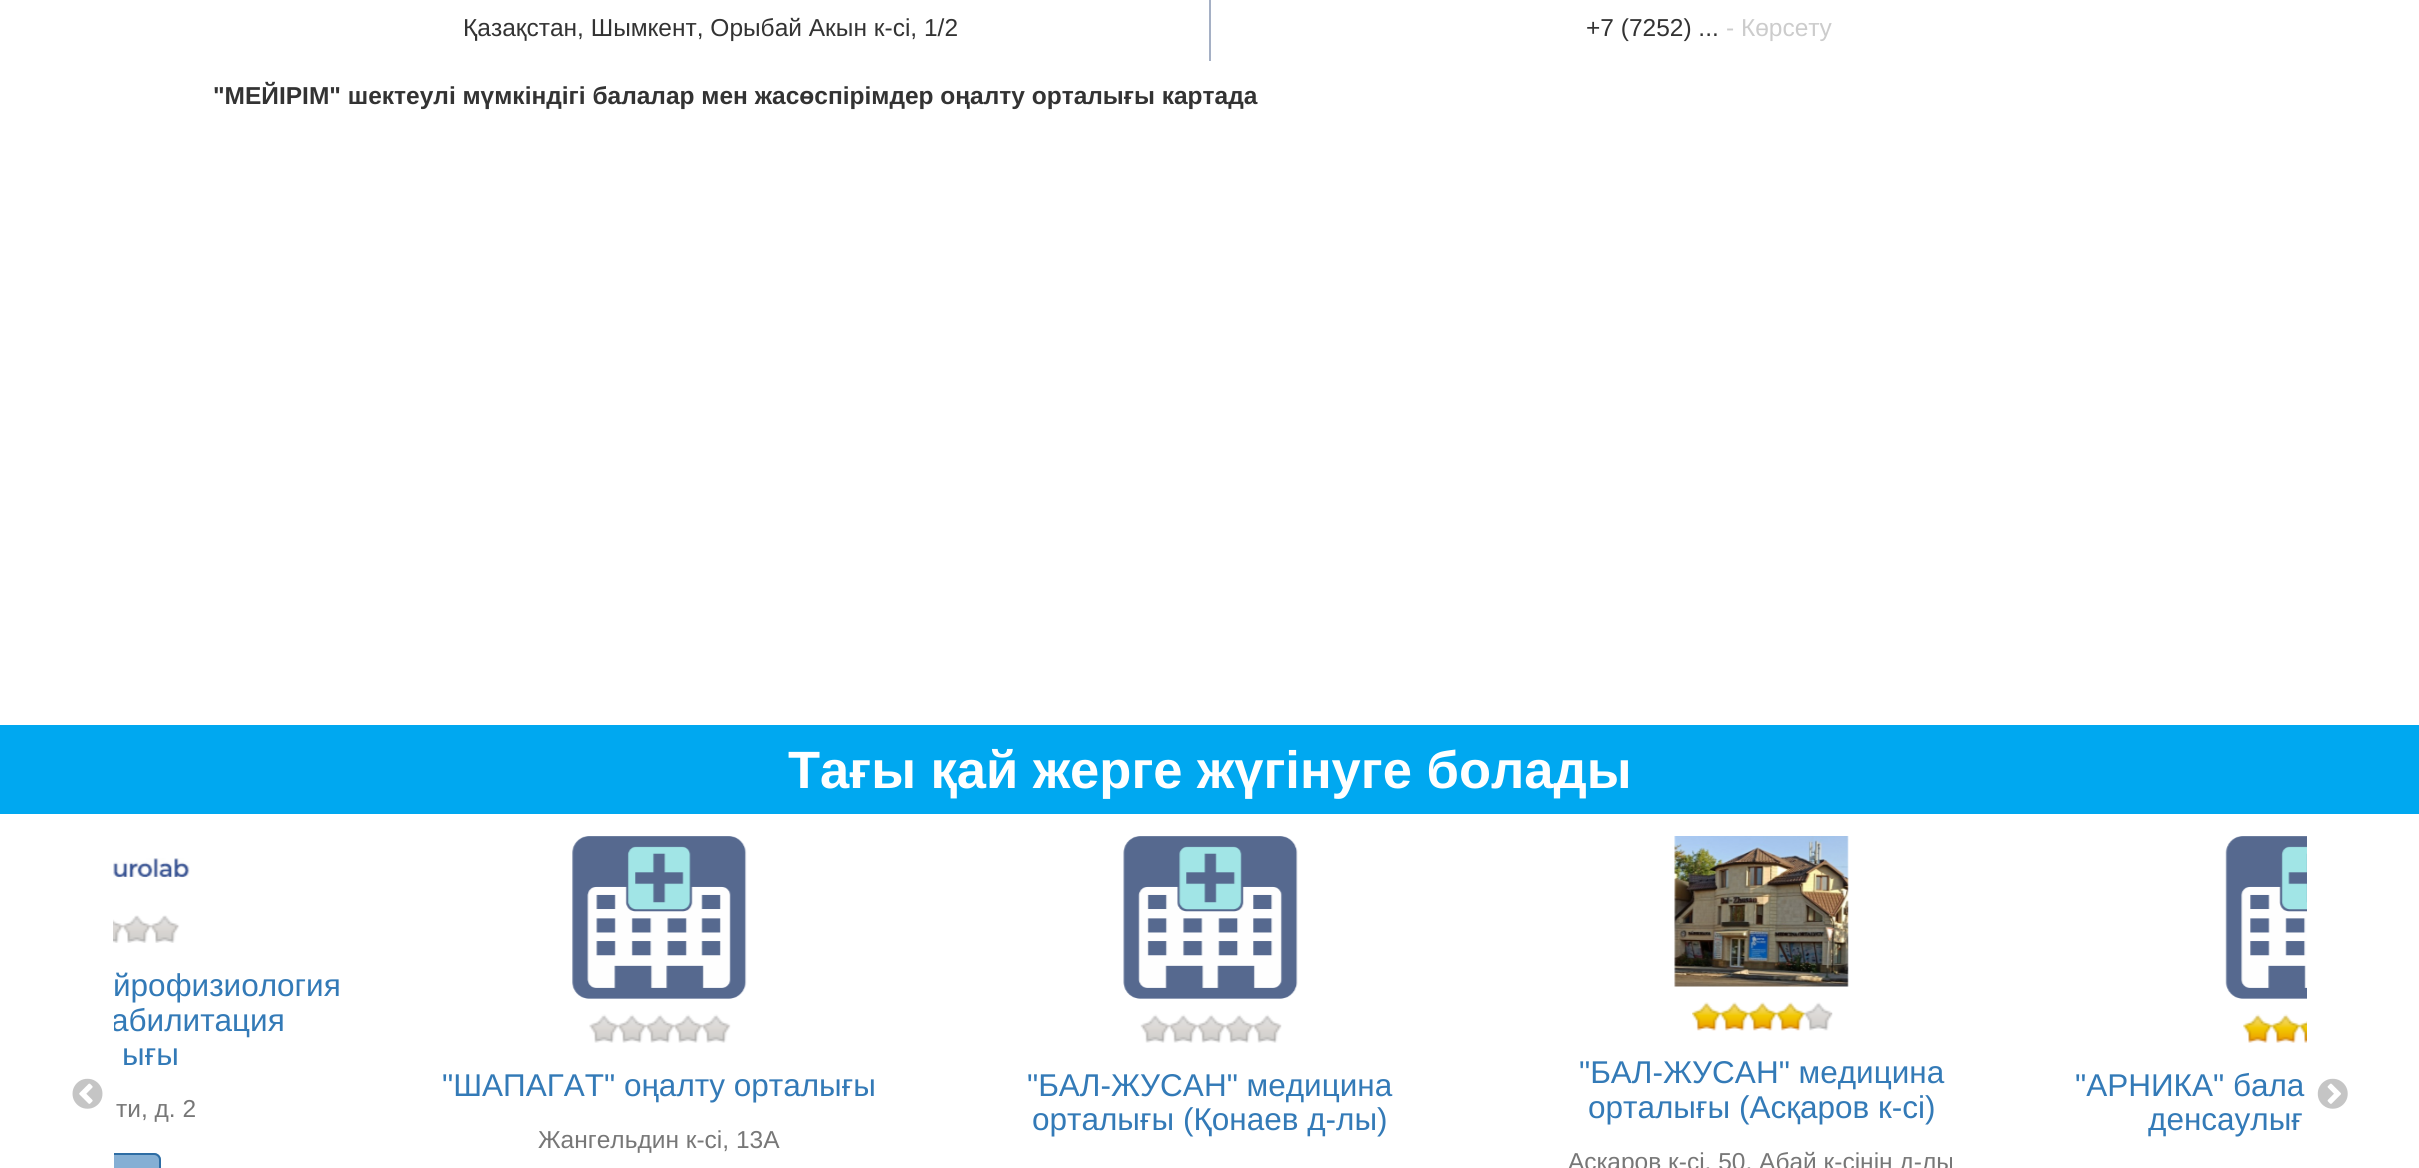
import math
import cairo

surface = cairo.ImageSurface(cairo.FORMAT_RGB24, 2419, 1168)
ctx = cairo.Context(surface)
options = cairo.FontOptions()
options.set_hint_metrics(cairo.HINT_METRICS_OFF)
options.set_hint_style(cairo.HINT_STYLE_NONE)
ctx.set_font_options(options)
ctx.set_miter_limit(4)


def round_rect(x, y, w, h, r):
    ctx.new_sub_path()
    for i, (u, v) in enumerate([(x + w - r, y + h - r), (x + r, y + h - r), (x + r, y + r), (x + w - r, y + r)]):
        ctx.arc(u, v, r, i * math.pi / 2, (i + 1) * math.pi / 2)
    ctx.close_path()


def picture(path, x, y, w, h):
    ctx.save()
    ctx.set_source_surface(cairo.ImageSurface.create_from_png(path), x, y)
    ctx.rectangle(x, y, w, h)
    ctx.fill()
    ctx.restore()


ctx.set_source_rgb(1, 1, 1)
ctx.paint()
ctx.set_source_rgb(0.647, 0.69, 0.773)
ctx.rectangle(1209, 0, 2, 61)
ctx.fill()
ctx.select_font_face("Liberation Sans")
ctx.set_font_size(24.5)
ctx.set_source_rgb(0.2, 0.2, 0.2)
ctx.move_to(463, 36)
ctx.show_text("Қазақстан, Шымкент, Орыбай Акын к-сi, 1/2")
ctx.move_to(1586, 36)
ctx.show_text("+7 (7252) ...")
ctx.set_source_rgb(0.8, 0.8, 0.8)
ctx.move_to(1726, 36)
ctx.show_text("- Көрсету")
ctx.select_font_face("Liberation Sans", cairo.FONT_SLANT_NORMAL, cairo.FONT_WEIGHT_BOLD)
ctx.set_source_rgb(0.2, 0.2, 0.2)
ctx.move_to(213, 104)
ctx.show_text("\"МЕЙІРІМ\" шектеулі мүмкіндігі балалар мен жасөспірімдер оңалту орталығы картада")
ctx.set_source_rgb(0, 0.659, 0.941)
ctx.rectangle(0, 725, 2419, 89)
ctx.fill()
ctx.set_font_size(52.5)
ctx.set_source_rgb(1, 1, 1)
ctx.move_to(788, 788)
ctx.show_text("Тағы қай жерге жүгінуге болады")
picture("img1.png", 72, 1078, 31, 31)
picture("img2.png", 113, 858, 77, 20)
picture("img3.png", 113, 915, 67, 28)
ctx.select_font_face("Liberation Sans")
ctx.set_font_size(31.5)
ctx.set_source_rgb(0.2, 0.478, 0.718)
ctx.move_to(113, 996)
ctx.show_text("йрофизиология")
ctx.save()
ctx.rectangle(114, 830, 2193, 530)
ctx.clip()
ctx.move_to(111, 1031)
ctx.show_text("абилитация")
ctx.restore()
ctx.move_to(122, 1065)
ctx.show_text("ығы")
ctx.set_font_size(24.5)
ctx.set_source_rgb(0.467, 0.467, 0.467)
ctx.move_to(116, 1117)
ctx.show_text("ти, д. 2")
ctx.set_source_rgb(0.522, 0.686, 0.831)
ctx.new_path()
ctx.move_to(114, 1153)
ctx.line_to(154, 1153)
ctx.curve_to(158, 1153, 161, 1156, 161, 1160)
ctx.line_to(161, 1168)
ctx.curve_to(161, 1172, 158, 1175, 154, 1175)
ctx.line_to(114, 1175)
ctx.close_path()
ctx.fill()
ctx.save()
ctx.rectangle(114, 830, 2193, 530)
ctx.clip()
round_rect(55, 1154, 105, 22, 6)
ctx.set_source_rgb(0.18, 0.427, 0.643)
ctx.stroke()
ctx.restore()
picture("img4.png", 572, 836, 175, 163)
picture("img5.png", 589, 1014, 142, 29)
ctx.set_font_size(31.5)
ctx.set_source_rgb(0.2, 0.478, 0.718)
ctx.move_to(442, 1096)
ctx.show_text("\"ШАПАГАТ\" оңалту орталығы")
ctx.set_font_size(24.5)
ctx.set_source_rgb(0.467, 0.467, 0.467)
ctx.move_to(538, 1148)
ctx.show_text("Жангельдин к-сі, 13А")
picture("img6.png", 1123, 836, 175, 163)
picture("img7.png", 1140, 1014, 142, 29)
ctx.set_font_size(31.5)
ctx.set_source_rgb(0.2, 0.478, 0.718)
ctx.move_to(1027, 1096)
ctx.show_text("\"БАЛ-ЖУСАН\" медицина")
ctx.move_to(1032, 1130)
ctx.show_text("орталығы (Қонаев д-лы)")
picture("img8.png", 1674, 836, 175, 151)
picture("img9.png", 1692, 1002, 141, 29)
ctx.move_to(1579, 1083)
ctx.show_text("\"БАЛ-ЖУСАН\" медицина")
ctx.move_to(1588, 1118)
ctx.show_text("орталығы (Асқаров к-сі)")
ctx.set_font_size(24.5)
ctx.set_source_rgb(0.467, 0.467, 0.467)
ctx.move_to(1568, 1170)
ctx.show_text("Асқаров к-сі, 50, Абай к-сінің д-лы")
picture("img10.png", 2225, 836, 82, 163)
picture("img11.png", 2243, 1014, 64, 29)
ctx.set_font_size(31.5)
ctx.set_source_rgb(0.2, 0.478, 0.718)
ctx.move_to(2075, 1096)
ctx.show_text("\"АРНИКА\" бала")
ctx.move_to(2148, 1130)
ctx.show_text("денсаулығ")
picture("img12.png", 2317, 1078, 31, 31)
surface.write_to_png("page.png")
